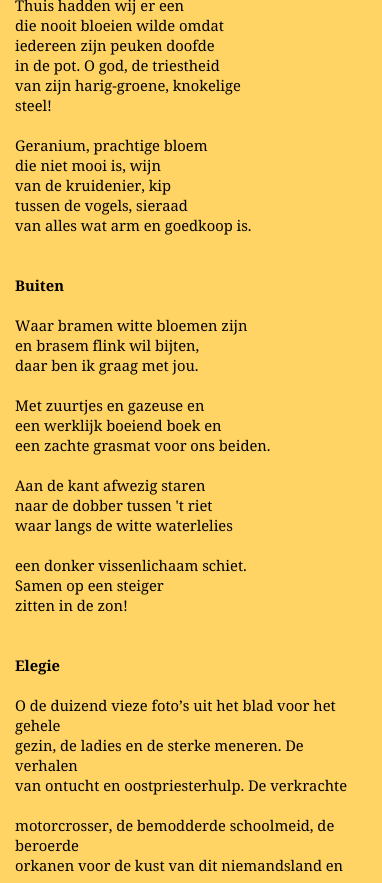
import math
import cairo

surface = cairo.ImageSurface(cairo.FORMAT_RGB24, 382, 883)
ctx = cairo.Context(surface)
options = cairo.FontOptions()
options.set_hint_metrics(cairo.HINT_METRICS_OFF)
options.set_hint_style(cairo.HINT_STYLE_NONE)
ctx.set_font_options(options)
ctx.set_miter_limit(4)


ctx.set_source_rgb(1, 0.831, 0.392)
ctx.paint()
ctx.select_font_face("Noto Serif")
ctx.set_font_size(14.7)
ctx.set_source_rgb(0, 0, 0)
ctx.move_to(15, 11)
ctx.show_text("Thuis hadden wij er een")
ctx.move_to(15, 31)
ctx.show_text("die nooit bloeien wilde omdat")
ctx.move_to(15, 51)
ctx.show_text("iedereen zijn peuken doofde")
ctx.move_to(15, 71)
ctx.show_text("in de pot. O god, de triestheid")
ctx.move_to(15, 91)
ctx.show_text("van zijn harig-groene, knokelige")
ctx.move_to(15, 111)
ctx.show_text("steel!")
ctx.move_to(15, 151)
ctx.show_text("Geranium, prachtige bloem")
ctx.move_to(15, 171)
ctx.show_text("die niet mooi is, wijn")
ctx.move_to(15, 191)
ctx.show_text("van de kruidenier, kip")
ctx.move_to(15, 211)
ctx.show_text("tussen de vogels, sieraad")
ctx.move_to(15, 231)
ctx.show_text("van alles wat arm en goedkoop is.")
ctx.select_font_face("Noto Serif", cairo.FONT_SLANT_NORMAL, cairo.FONT_WEIGHT_BOLD)
ctx.move_to(15, 291)
ctx.show_text("Buiten")
ctx.select_font_face("Noto Serif")
ctx.move_to(15, 331)
ctx.show_text("Waar bramen witte bloemen zijn")
ctx.move_to(15, 351)
ctx.show_text("en brasem flink wil bijten,")
ctx.move_to(15, 371)
ctx.show_text("daar ben ik graag met jou.")
ctx.move_to(15, 411)
ctx.show_text("Met zuurtjes en gazeuse en")
ctx.move_to(15, 431)
ctx.show_text("een werklijk boeiend boek en")
ctx.move_to(15, 451)
ctx.show_text("een zachte grasmat voor ons beiden.")
ctx.move_to(15, 491)
ctx.show_text("Aan de kant afwezig staren")
ctx.move_to(15, 511)
ctx.show_text("naar de dobber tussen 't riet")
ctx.move_to(15, 531)
ctx.show_text("waar langs de witte waterlelies")
ctx.move_to(15, 571)
ctx.show_text("een donker vissenlichaam schiet.")
ctx.move_to(15, 591)
ctx.show_text("Samen op een steiger")
ctx.move_to(15, 611)
ctx.show_text("zitten in de zon!")
ctx.select_font_face("Noto Serif", cairo.FONT_SLANT_NORMAL, cairo.FONT_WEIGHT_BOLD)
ctx.move_to(15, 671)
ctx.show_text("Elegie")
ctx.select_font_face("Noto Serif")
ctx.move_to(15, 711)
ctx.show_text("O de duizend vieze foto’s uit het blad voor het")
ctx.move_to(15, 731)
ctx.show_text("gehele")
ctx.move_to(15, 751)
ctx.show_text("gezin, de ladies en de sterke meneren. De")
ctx.move_to(15, 771)
ctx.show_text("verhalen")
ctx.move_to(15, 791)
ctx.show_text("van ontucht en oostpriesterhulp. De verkrachte")
ctx.move_to(15, 831)
ctx.show_text("motorcrosser, de bemodderde schoolmeid, de")
ctx.move_to(15, 851)
ctx.show_text("beroerde")
ctx.move_to(15, 871)
ctx.show_text("orkanen voor de kust van dit niemandsland en")
surface.write_to_png("page.png")
